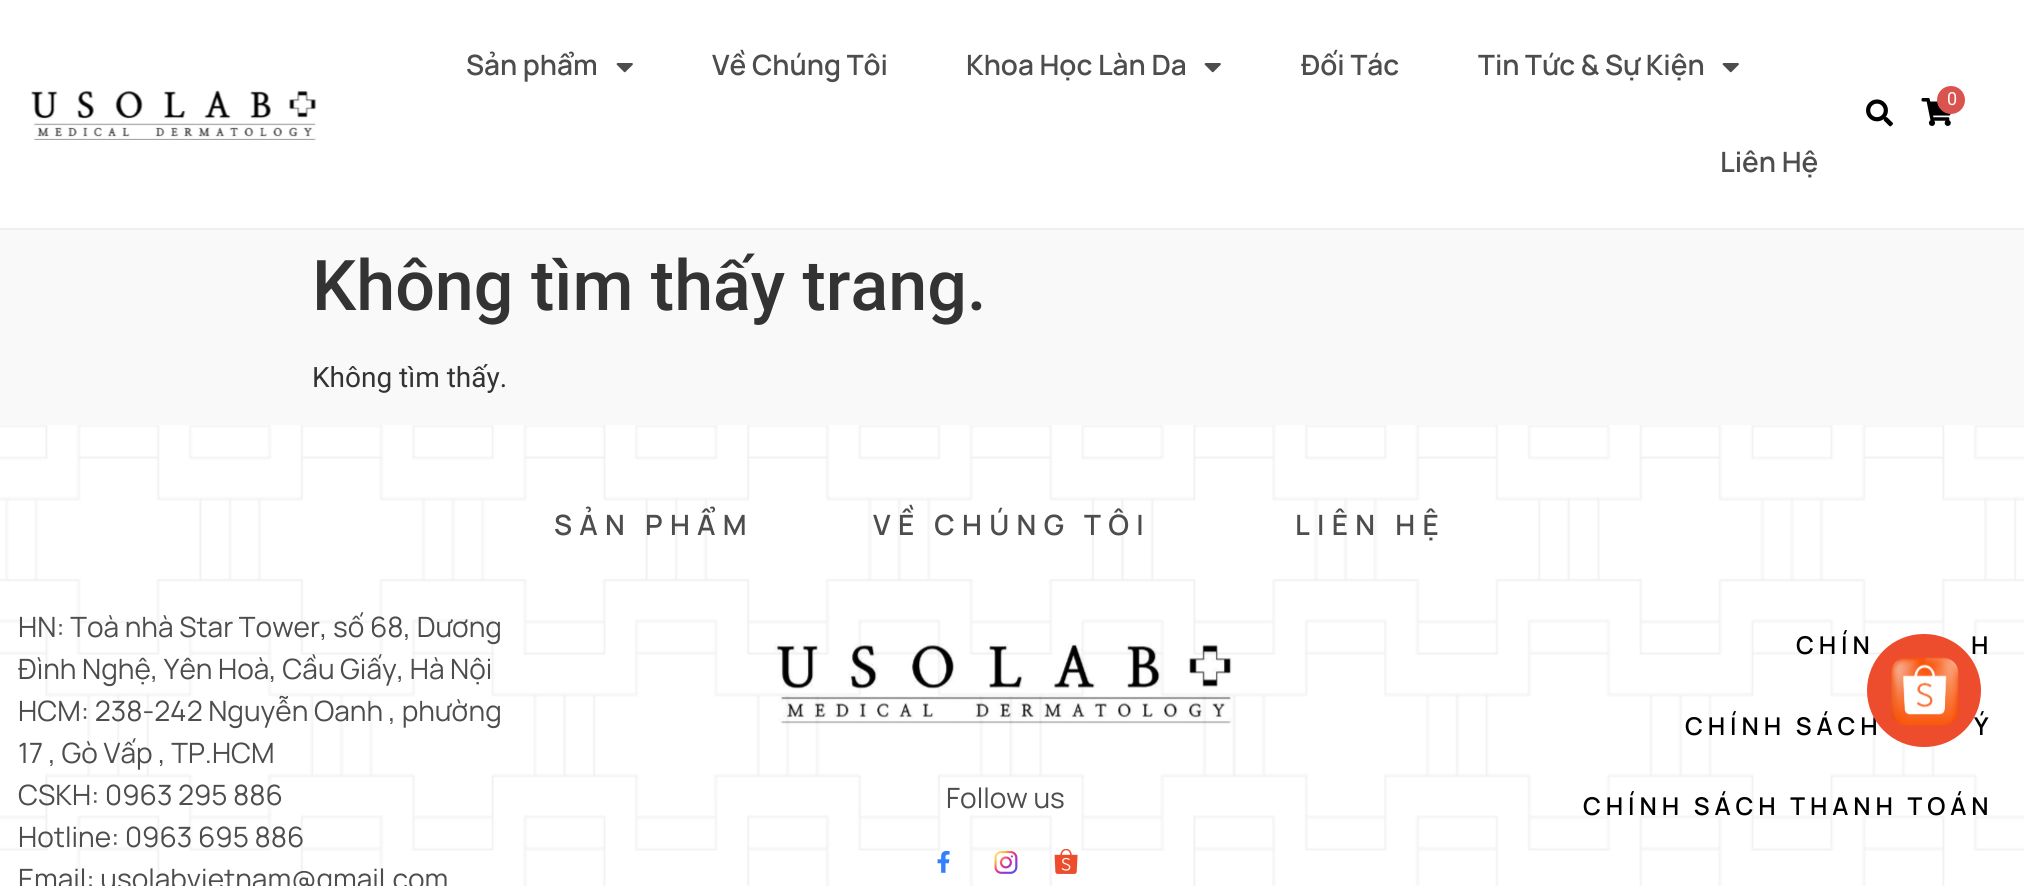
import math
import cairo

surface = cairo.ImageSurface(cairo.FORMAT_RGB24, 2024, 886)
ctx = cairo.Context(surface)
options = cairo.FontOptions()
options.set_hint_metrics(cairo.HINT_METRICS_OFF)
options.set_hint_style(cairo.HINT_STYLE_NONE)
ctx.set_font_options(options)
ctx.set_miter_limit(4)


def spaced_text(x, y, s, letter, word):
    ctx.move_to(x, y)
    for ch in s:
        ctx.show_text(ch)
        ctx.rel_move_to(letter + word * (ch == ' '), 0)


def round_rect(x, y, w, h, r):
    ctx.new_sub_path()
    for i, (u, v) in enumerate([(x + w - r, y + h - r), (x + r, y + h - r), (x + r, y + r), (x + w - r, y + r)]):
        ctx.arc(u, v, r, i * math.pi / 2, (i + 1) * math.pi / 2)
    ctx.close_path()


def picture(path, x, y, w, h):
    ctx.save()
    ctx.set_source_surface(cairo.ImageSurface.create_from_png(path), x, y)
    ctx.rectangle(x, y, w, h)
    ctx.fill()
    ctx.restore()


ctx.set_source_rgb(0.973, 0.973, 0.973)
ctx.paint()
ctx.set_source_rgb(1, 1, 1)
ctx.rectangle(0, 0, 2024, 228)
ctx.fill()
ctx.set_source_rgb(0.941, 0.941, 0.941)
ctx.rectangle(0, 228, 2024, 2)
ctx.fill()
picture("img1.png", 31, 90, 286, 50)
ctx.select_font_face("Manrope SemiBold")
ctx.set_font_size(28)
ctx.set_source_rgb(0.302, 0.302, 0.302)
ctx.move_to(466, 75)
ctx.show_text("Sản phẩm")
picture("img2.png", 616, 63, 17, 10)
ctx.move_to(712, 75)
ctx.show_text("Về Chúng Tôi")
ctx.move_to(966, 75)
ctx.show_text("Khoa Học Làn Da")
picture("img2.png", 1204, 63, 17, 10)
ctx.move_to(1301, 75)
ctx.show_text("Đối Tác")
ctx.move_to(1478, 75)
ctx.show_text("Tin Tức & Sự Kiện")
picture("img2.png", 1722, 63, 17, 10)
ctx.move_to(1720, 172)
ctx.show_text("Liên Hệ")
picture("img3.png", 1866, 99, 27, 28)
picture("img4.png", 1921, 98, 30, 28)
ctx.set_source_rgb(0.851, 0.325, 0.31)
ctx.arc(1951, 100, 14, 0, 2 * math.pi)
ctx.fill()
ctx.select_font_face("Roboto")
ctx.set_font_size(18)
ctx.set_source_rgb(1, 1, 1)
ctx.move_to(1947, 105)
ctx.show_text("0")
ctx.select_font_face("Roboto Medium")
ctx.set_font_size(70)
ctx.set_source_rgb(0.2, 0.2, 0.2)
ctx.move_to(312, 310)
ctx.show_text("Không tìm thấy trang.")
ctx.select_font_face("Roboto")
ctx.set_font_size(28)
ctx.move_to(312, 387)
ctx.show_text("Không tìm thấy.")
picture("img5.png", 0, 425, 2024, 461)
ctx.select_font_face("Manrope SemiBold")
ctx.set_source_rgb(0.302, 0.302, 0.302)
spaced_text(554, 535, "SẢN PHẨM", 7.3, 0)
spaced_text(873, 535, "VỀ CHÚNG TÔI", 7.3, 0)
spaced_text(1295, 535, "LIÊN HỆ", 7.3, 0)
ctx.set_font_size(24.5)
ctx.set_source_rgb(0, 0, 0)
spaced_text(1796, 654, "CHÍN", 4.9, 0)
spaced_text(1971, 654, "H", 4.9, 0)
spaced_text(1685, 735, "CHÍNH SÁCH", 4.9, 0)
spaced_text(1974, 735, "Ý", 4.9, 0)
ctx.set_source_rgb(0.933, 0.302, 0.176)
round_rect(1867, 634, 114, 113, 56.5)
ctx.fill()
picture("img6.png", 1891, 657, 68, 69)
ctx.select_font_face("Manrope")
ctx.set_font_size(28)
ctx.set_source_rgb(0.302, 0.302, 0.302)
ctx.move_to(18, 637)
ctx.show_text("HN: Toà nhà Star Tower, số 68, Dương")
ctx.move_to(18, 679)
ctx.show_text("Đình Nghệ, Yên Hoà, Cầu Giấy, Hà Nội")
ctx.move_to(18, 721)
ctx.show_text("HCM: 238-242 Nguyễn Oanh , phường")
ctx.move_to(18, 763)
ctx.show_text("17 , Gò Vấp , TP.HCM")
ctx.move_to(18, 805)
ctx.show_text("CSKH: 0963 295 886")
ctx.move_to(18, 847)
ctx.show_text("Hotline: 0963 695 886")
ctx.move_to(18, 889)
ctx.show_text("Email: usolabvietnam@gmail.com")
picture("img7.png", 774, 643, 458, 81)
ctx.move_to(946, 808)
ctx.show_text("Follow us")
picture("img8.png", 937, 850, 13, 23)
picture("img9.png", 994, 850, 24, 24)
picture("img10.png", 1054, 849, 24, 25)
ctx.select_font_face("Manrope SemiBold")
ctx.set_font_size(24.5)
ctx.set_source_rgb(0, 0, 0)
spaced_text(1583, 815, "CHÍNH SÁCH THANH TOÁN", 4.9, 0)
surface.write_to_png("page.png")
